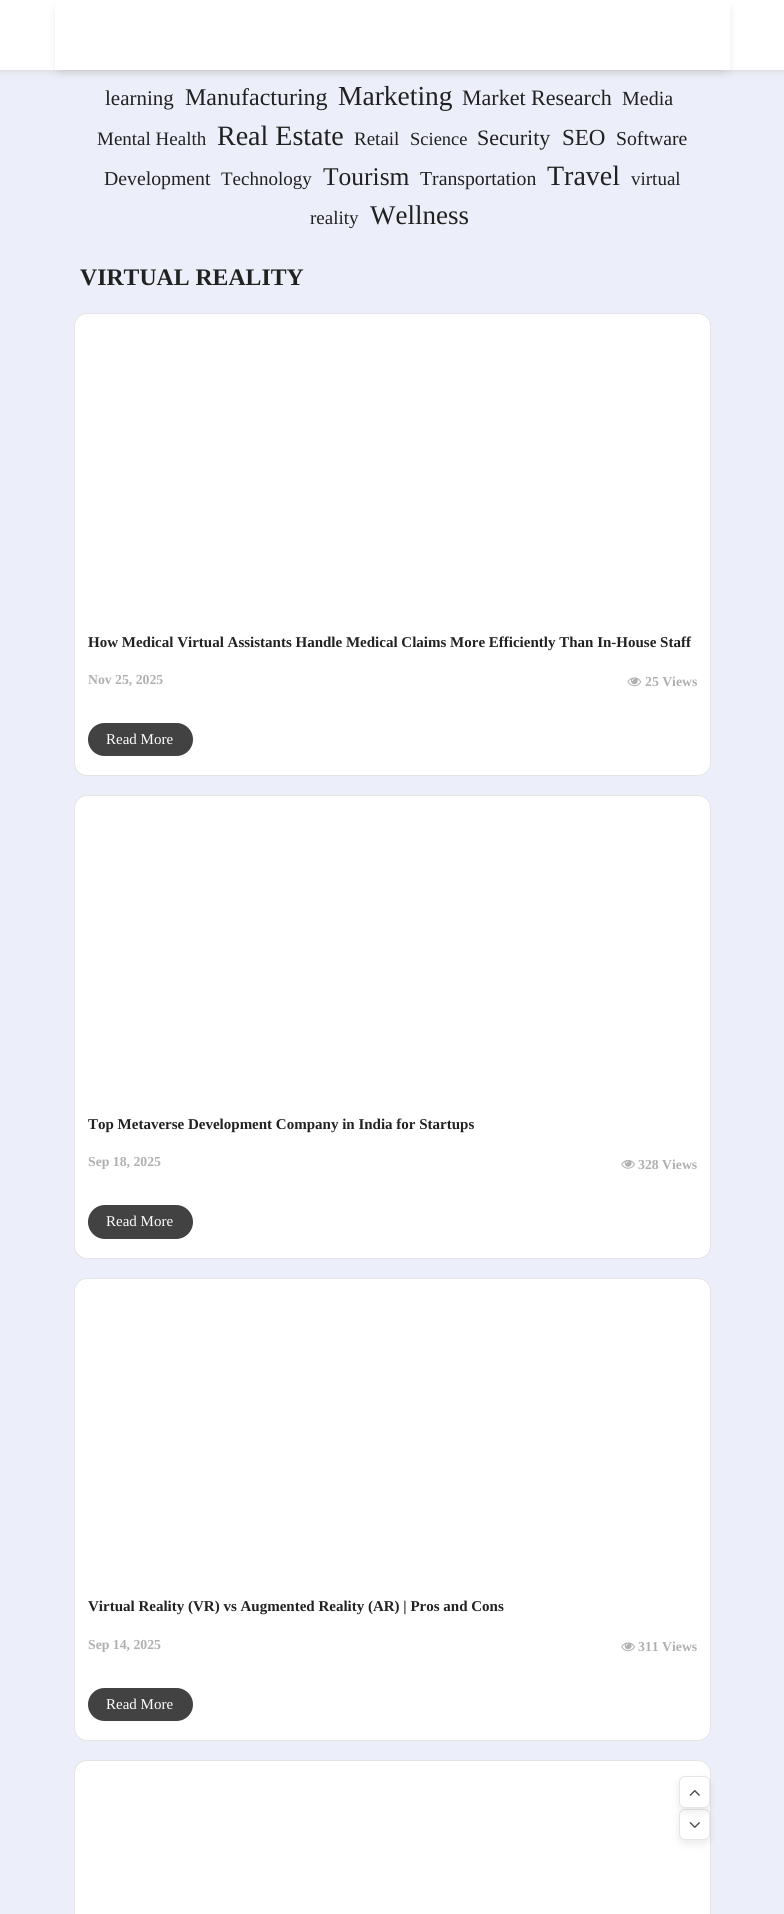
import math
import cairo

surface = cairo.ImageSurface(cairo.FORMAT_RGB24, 784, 1914)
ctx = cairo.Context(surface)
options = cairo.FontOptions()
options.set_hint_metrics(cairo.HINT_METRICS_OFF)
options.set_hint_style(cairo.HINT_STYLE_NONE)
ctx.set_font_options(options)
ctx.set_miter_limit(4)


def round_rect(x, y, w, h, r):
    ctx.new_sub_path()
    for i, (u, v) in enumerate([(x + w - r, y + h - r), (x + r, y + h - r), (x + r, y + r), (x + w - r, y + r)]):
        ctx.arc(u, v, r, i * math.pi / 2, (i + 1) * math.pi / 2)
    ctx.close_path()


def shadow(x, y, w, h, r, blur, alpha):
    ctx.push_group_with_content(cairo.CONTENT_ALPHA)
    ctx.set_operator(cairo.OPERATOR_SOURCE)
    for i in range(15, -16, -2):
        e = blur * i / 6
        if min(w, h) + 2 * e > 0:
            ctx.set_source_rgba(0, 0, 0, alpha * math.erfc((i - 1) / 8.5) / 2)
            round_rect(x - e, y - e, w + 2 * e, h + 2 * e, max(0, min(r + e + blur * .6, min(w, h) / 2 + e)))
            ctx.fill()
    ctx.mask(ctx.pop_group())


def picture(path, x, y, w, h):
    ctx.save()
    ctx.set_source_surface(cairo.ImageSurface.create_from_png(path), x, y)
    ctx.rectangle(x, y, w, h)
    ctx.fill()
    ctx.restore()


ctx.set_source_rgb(0.925, 0.937, 0.973)
ctx.paint()
ctx.set_source_rgb(0.816, 0.816, 0.816)
shadow(0, 0, 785, 70, 0, 4, 1)
ctx.set_source_rgb(1, 1, 1)
ctx.rectangle(0, 0, 784, 70)
ctx.fill()
ctx.save()
ctx.set_fill_rule(cairo.FILL_RULE_EVEN_ODD)
ctx.new_path()
ctx.move_to(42, 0)
ctx.line_to(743, 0)
ctx.line_to(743, 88)
ctx.line_to(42, 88)
ctx.close_path()
ctx.move_to(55, 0)
ctx.line_to(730, 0)
ctx.line_to(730, 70)
ctx.line_to(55, 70)
ctx.close_path()
ctx.clip()
ctx.set_source_rgb(0.765, 0.765, 0.765)
shadow(60, 10, 665, 60, 0, 5.5, 1)
ctx.restore()
ctx.select_font_face("Liberation Serif")
ctx.set_font_size(21)
ctx.set_source_rgb(0.129, 0.129, 0.129)
ctx.move_to(105, 105)
ctx.show_text("learning")
ctx.set_font_size(24)
ctx.move_to(185, 105)
ctx.show_text("Manufacturing")
ctx.set_font_size(27.5)
ctx.move_to(338, 105)
ctx.show_text("Marketing")
ctx.set_font_size(22)
ctx.move_to(462, 105)
ctx.show_text("Market Research")
ctx.set_font_size(20)
ctx.move_to(622, 105)
ctx.show_text("Media")
ctx.set_font_size(19)
ctx.move_to(97, 145)
ctx.show_text("Mental Health")
ctx.set_font_size(28)
ctx.move_to(217, 145)
ctx.show_text("Real Estate")
ctx.set_font_size(19)
ctx.move_to(354, 145)
ctx.show_text("Retail")
ctx.set_font_size(18.5)
ctx.move_to(410, 145)
ctx.show_text("Science")
ctx.set_font_size(22)
ctx.move_to(477, 145)
ctx.show_text("Security")
ctx.set_font_size(23)
ctx.move_to(562, 145)
ctx.show_text("SEO")
ctx.set_font_size(19.75)
ctx.move_to(616, 145)
ctx.show_text("Software")
ctx.move_to(104, 185)
ctx.show_text("Development")
ctx.set_font_size(19)
ctx.move_to(221, 185)
ctx.show_text("Technology")
ctx.set_font_size(25.5)
ctx.move_to(323, 185)
ctx.show_text("Tourism")
ctx.set_font_size(19.75)
ctx.move_to(420, 185)
ctx.show_text("Transportation")
ctx.set_font_size(28)
ctx.move_to(547, 185)
ctx.show_text("Travel")
ctx.set_font_size(19)
ctx.move_to(631, 185)
ctx.show_text("virtual")
ctx.move_to(310, 224)
ctx.show_text("reality")
ctx.set_font_size(27)
ctx.move_to(370, 224)
ctx.show_text("Wellness")
ctx.select_font_face("Liberation Serif", cairo.FONT_SLANT_NORMAL, cairo.FONT_WEIGHT_BOLD)
ctx.set_font_size(23.75)
ctx.move_to(80, 285)
ctx.show_text("VIRTUAL REALITY")
ctx.set_source_rgb(1, 1, 1)
round_rect(74.5, 313.5, 636, 462, 12.5)
ctx.fill_preserve()
ctx.set_source_rgb(0.894, 0.894, 0.894)
ctx.set_line_width(1)
ctx.stroke()
ctx.set_font_size(15)
ctx.set_source_rgb(0.129, 0.129, 0.129)
ctx.move_to(88, 647)
ctx.show_text("How Medical Virtual Assistants Handle Medical Claims More Efficiently Than In-House Staff")
ctx.set_font_size(13.75)
ctx.set_source_rgb(0.694, 0.69, 0.69)
ctx.move_to(88, 684)
ctx.show_text("Nov 25, 2025")
picture("img1.png", 627, 677, 15, 10)
ctx.move_to(645, 686)
ctx.show_text("25 Views")
ctx.set_source_rgb(0.259, 0.259, 0.259)
round_rect(88, 723, 105, 33, 16.5)
ctx.fill()
ctx.select_font_face("Liberation Serif")
ctx.set_font_size(15)
ctx.set_source_rgb(1, 1, 1)
ctx.move_to(106, 744)
ctx.show_text("Read More")
round_rect(74.5, 795.5, 636, 463, 12.5)
ctx.fill_preserve()
ctx.set_source_rgb(0.894, 0.894, 0.894)
ctx.stroke()
ctx.select_font_face("Liberation Serif", cairo.FONT_SLANT_NORMAL, cairo.FONT_WEIGHT_BOLD)
ctx.set_source_rgb(0.129, 0.129, 0.129)
ctx.move_to(88, 1129)
ctx.show_text("Top Metaverse Development Company in India for Startups")
ctx.set_font_size(13.75)
ctx.set_source_rgb(0.694, 0.69, 0.69)
ctx.move_to(88, 1166)
ctx.show_text("Sep 18, 2025")
picture("img2.png", 621, 1160, 14, 9)
ctx.move_to(638, 1169)
ctx.show_text("328 Views")
ctx.set_source_rgb(0.259, 0.259, 0.259)
round_rect(88, 1205, 105, 34, 17)
ctx.fill()
ctx.select_font_face("Liberation Serif")
ctx.set_font_size(15)
ctx.set_source_rgb(1, 1, 1)
ctx.move_to(106, 1226)
ctx.show_text("Read More")
round_rect(74.5, 1278.5, 636, 462, 12.5)
ctx.fill_preserve()
ctx.set_source_rgb(0.894, 0.894, 0.894)
ctx.stroke()
ctx.select_font_face("Liberation Serif", cairo.FONT_SLANT_NORMAL, cairo.FONT_WEIGHT_BOLD)
ctx.set_source_rgb(0.129, 0.129, 0.129)
ctx.move_to(88, 1611)
ctx.show_text("Virtual Reality (VR) vs Augmented Reality (AR) | Pros and Cons")
ctx.set_font_size(13.75)
ctx.set_source_rgb(0.694, 0.69, 0.69)
ctx.move_to(88, 1649)
ctx.show_text("Sep 14, 2025")
picture("img3.png", 621, 1642, 14, 10)
ctx.move_to(638, 1651)
ctx.show_text("311 Views")
ctx.set_source_rgb(0.259, 0.259, 0.259)
round_rect(88, 1688, 105, 33, 16.5)
ctx.fill()
ctx.select_font_face("Liberation Serif")
ctx.set_font_size(15)
ctx.set_source_rgb(1, 1, 1)
ctx.move_to(106, 1709)
ctx.show_text("Read More")
round_rect(74.5, 1760.5, 636, 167, 12.5)
ctx.fill_preserve()
ctx.set_source_rgb(0.894, 0.894, 0.894)
ctx.stroke()
ctx.set_source_rgb(0, 0, 0)
shadow(678, 1811, 33, 34, 8, 4, 0.07)
ctx.set_source_rgb(1, 1, 1)
round_rect(679.5, 1809.5, 30, 30, 5.5)
ctx.fill_preserve()
ctx.set_source_rgb(0.898, 0.898, 0.898)
ctx.stroke()
picture("img5.png", 689, 1822, 11, 6)
ctx.set_source_rgb(0, 0, 0)
shadow(678, 1779, 33, 34, 8, 4, 0.07)
ctx.set_source_rgb(1, 1, 1)
round_rect(679, 1776, 31, 32, 6)
ctx.fill()
round_rect(679.5, 1776.5, 30, 31, 5.5)
ctx.set_source_rgba(0, 0, 0, 0.1)
ctx.stroke()
picture("img4.png", 689, 1789, 11, 7)
surface.write_to_png("page.png")
